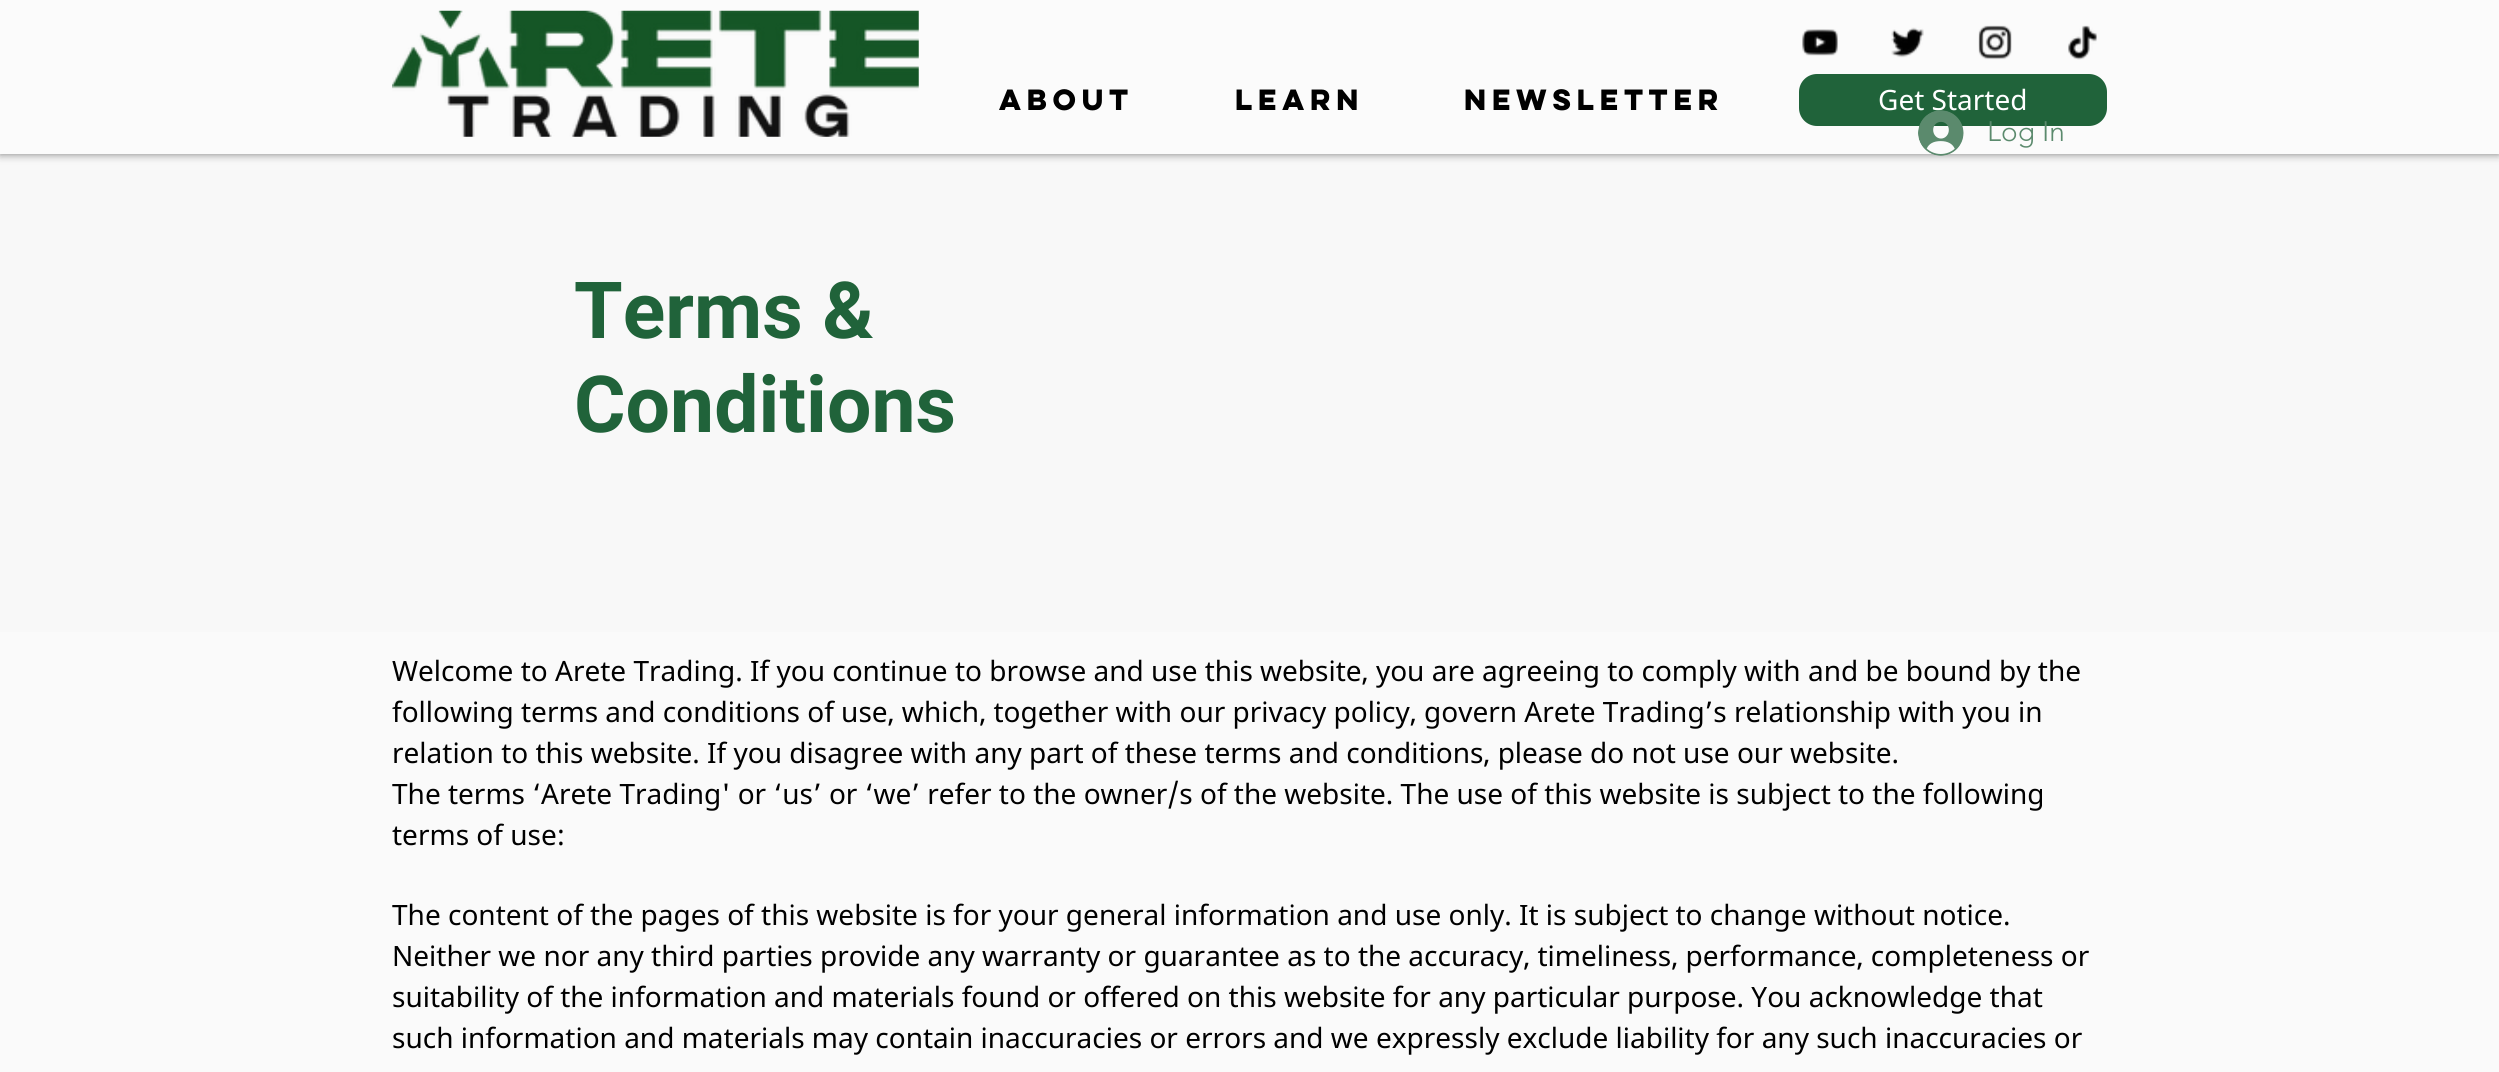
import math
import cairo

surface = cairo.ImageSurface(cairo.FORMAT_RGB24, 2499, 1072)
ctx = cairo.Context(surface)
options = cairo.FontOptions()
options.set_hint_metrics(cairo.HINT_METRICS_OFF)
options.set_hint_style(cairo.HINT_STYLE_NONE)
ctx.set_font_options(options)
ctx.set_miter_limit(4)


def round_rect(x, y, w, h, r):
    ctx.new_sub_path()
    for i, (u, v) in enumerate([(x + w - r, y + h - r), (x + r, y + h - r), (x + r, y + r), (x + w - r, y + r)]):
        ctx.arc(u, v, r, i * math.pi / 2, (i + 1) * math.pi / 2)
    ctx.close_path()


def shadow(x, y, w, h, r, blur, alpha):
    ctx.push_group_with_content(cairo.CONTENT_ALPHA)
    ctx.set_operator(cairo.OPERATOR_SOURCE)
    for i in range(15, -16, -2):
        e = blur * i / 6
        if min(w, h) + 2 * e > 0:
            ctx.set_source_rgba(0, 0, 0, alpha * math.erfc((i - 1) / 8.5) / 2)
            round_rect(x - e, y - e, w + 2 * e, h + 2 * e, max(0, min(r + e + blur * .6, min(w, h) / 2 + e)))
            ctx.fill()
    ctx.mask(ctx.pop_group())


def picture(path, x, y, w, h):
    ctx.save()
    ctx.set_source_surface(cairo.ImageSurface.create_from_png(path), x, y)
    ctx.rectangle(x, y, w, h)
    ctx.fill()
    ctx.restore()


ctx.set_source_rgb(0.969, 0.969, 0.969)
ctx.paint()
ctx.set_source_rgb(0, 0, 0)
shadow(0, 0, 2499, 154, 0, 4.5, 0.5)
ctx.set_source_rgb(0.984, 0.984, 0.984)
ctx.rectangle(0, 0, 2499, 154)
ctx.fill()
picture("img1.png", 392, 10, 527, 127)
picture("img2.png", 1802, 29, 36, 27)
picture("img3.png", 1891, 27, 33, 31)
picture("img4.png", 1978, 25, 34, 35)
picture("img5.png", 2068, 25, 29, 35)
ctx.select_font_face("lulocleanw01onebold", cairo.FONT_SLANT_NORMAL, cairo.FONT_WEIGHT_BOLD)
ctx.set_font_size(26.25)
ctx.set_source_rgb(0, 0, 0)
ctx.move_to(999, 110)
ctx.show_text("About")
ctx.move_to(1235, 110)
ctx.show_text("Learn")
ctx.move_to(1464, 110)
ctx.show_text("Newsletter")
ctx.set_source_rgb(0.125, 0.388, 0.227)
round_rect(1799, 74, 308, 52, 18)
ctx.fill()
ctx.select_font_face("Noto Sans")
ctx.set_font_size(28)
ctx.set_source_rgb(1, 1, 1)
ctx.move_to(1878, 110)
ctx.show_text("Get Started")
picture("img6.png", 1918, 110, 46, 46)
ctx.select_font_face("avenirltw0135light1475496 Light")
ctx.set_source_rgb(0.357, 0.541, 0.427)
ctx.move_to(1987, 141)
ctx.show_text("Log In")
ctx.select_font_face("Roboto", cairo.FONT_SLANT_NORMAL, cairo.FONT_WEIGHT_BOLD)
ctx.set_font_size(78.75)
ctx.set_source_rgb(0.125, 0.388, 0.227)
ctx.move_to(574, 338)
ctx.show_text("Terms &")
ctx.move_to(574, 432)
ctx.show_text("Conditions")
ctx.set_source_rgb(0.98, 0.98, 0.98)
ctx.rectangle(0, 632, 2499, 440)
ctx.fill()
ctx.select_font_face("Noto Sans")
ctx.set_font_size(28)
ctx.set_source_rgb(0, 0, 0)
ctx.move_to(392, 681)
ctx.show_text("Welcome to Arete Trading. If you continue to browse and use this website, you are agreeing to comply with and be bound by the")
ctx.move_to(392, 722)
ctx.show_text("following terms and conditions of use, which, together with our privacy policy, govern Arete Trading’s relationship with you in")
ctx.move_to(392, 763)
ctx.show_text("relation to this website. If you disagree with any part of these terms and conditions, please do not use our website.")
ctx.move_to(392, 804)
ctx.show_text("The terms ‘Arete Trading' or ‘us’ or ‘we’ refer to the owner/s of the website. The use of this website is subject to the following")
ctx.move_to(392, 845)
ctx.show_text("terms of use:")
ctx.move_to(392, 925)
ctx.show_text("The content of the pages of this website is for your general information and use only. It is subject to change without notice.")
ctx.move_to(392, 966)
ctx.show_text("Neither we nor any third parties provide any warranty or guarantee as to the accuracy, timeliness, performance, completeness or")
ctx.move_to(392, 1007)
ctx.show_text("suitability of the information and materials found or offered on this website for any particular purpose. You acknowledge that")
ctx.move_to(392, 1048)
ctx.show_text("such information and materials may contain inaccuracies or errors and we expressly exclude liability for any such inaccuracies or")
surface.write_to_png("page.png")
